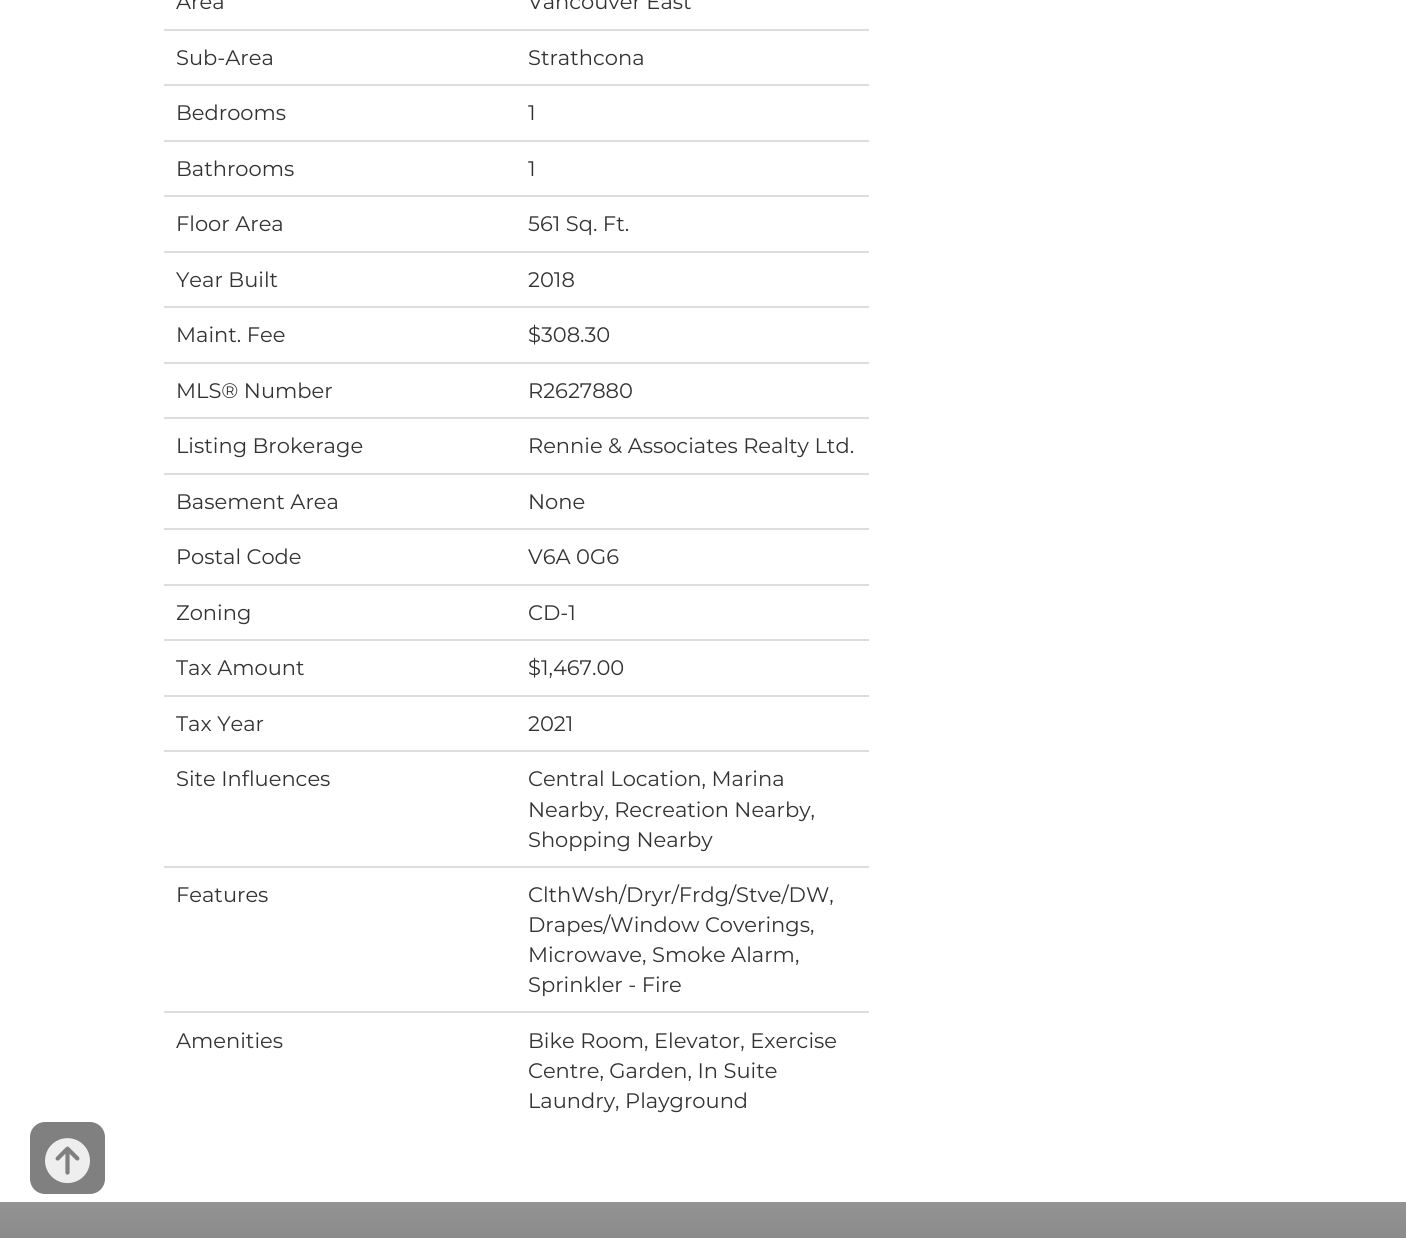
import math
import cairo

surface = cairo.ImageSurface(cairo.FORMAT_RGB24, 1406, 1238)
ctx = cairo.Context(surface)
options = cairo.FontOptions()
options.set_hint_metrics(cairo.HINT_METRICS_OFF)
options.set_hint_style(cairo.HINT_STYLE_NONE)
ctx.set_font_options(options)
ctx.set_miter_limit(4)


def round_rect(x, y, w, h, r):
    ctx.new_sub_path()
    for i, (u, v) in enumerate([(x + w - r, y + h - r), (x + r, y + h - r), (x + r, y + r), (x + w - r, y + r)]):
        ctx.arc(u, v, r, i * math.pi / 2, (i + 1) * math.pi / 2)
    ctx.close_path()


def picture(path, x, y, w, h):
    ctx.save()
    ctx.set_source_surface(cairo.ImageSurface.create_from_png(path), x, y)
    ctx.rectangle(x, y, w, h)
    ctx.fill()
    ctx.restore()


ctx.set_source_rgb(1, 1, 1)
ctx.paint()
ctx.select_font_face("Montserrat")
ctx.set_font_size(21)
ctx.set_source_rgb(0.2, 0.2, 0.2)
ctx.move_to(176, 9)
ctx.show_text("Area")
ctx.move_to(528, 9)
ctx.show_text("Vancouver East")
ctx.set_source_rgb(0.867, 0.867, 0.867)
ctx.rectangle(164, 29, 705, 2)
ctx.fill()
ctx.set_source_rgb(0.2, 0.2, 0.2)
ctx.move_to(176, 65)
ctx.show_text("Sub-Area")
ctx.move_to(528, 65)
ctx.show_text("Strathcona")
ctx.set_source_rgb(0.867, 0.867, 0.867)
ctx.rectangle(164, 84, 705, 2)
ctx.fill()
ctx.set_source_rgb(0.2, 0.2, 0.2)
ctx.move_to(176, 120)
ctx.show_text("Bedrooms")
ctx.move_to(528, 120)
ctx.show_text("1")
ctx.set_source_rgb(0.867, 0.867, 0.867)
ctx.rectangle(164, 140, 705, 2)
ctx.fill()
ctx.set_source_rgb(0.2, 0.2, 0.2)
ctx.move_to(176, 176)
ctx.show_text("Bathrooms")
ctx.move_to(528, 176)
ctx.show_text("1")
ctx.set_source_rgb(0.867, 0.867, 0.867)
ctx.rectangle(164, 195, 705, 2)
ctx.fill()
ctx.set_source_rgb(0.2, 0.2, 0.2)
ctx.move_to(176, 231)
ctx.show_text("Floor Area")
ctx.move_to(528, 231)
ctx.show_text("561 Sq. Ft.")
ctx.set_source_rgb(0.867, 0.867, 0.867)
ctx.rectangle(164, 251, 705, 2)
ctx.fill()
ctx.set_source_rgb(0.2, 0.2, 0.2)
ctx.move_to(176, 287)
ctx.show_text("Year Built")
ctx.move_to(528, 287)
ctx.show_text("2018")
ctx.set_source_rgb(0.867, 0.867, 0.867)
ctx.rectangle(164, 306, 705, 2)
ctx.fill()
ctx.set_source_rgb(0.2, 0.2, 0.2)
ctx.move_to(176, 342)
ctx.show_text("Maint. Fee")
ctx.move_to(528, 342)
ctx.show_text("$308.30")
ctx.set_source_rgb(0.867, 0.867, 0.867)
ctx.rectangle(164, 362, 705, 2)
ctx.fill()
ctx.set_source_rgb(0.2, 0.2, 0.2)
ctx.move_to(176, 398)
ctx.show_text("MLS® Number")
ctx.move_to(528, 398)
ctx.show_text("R2627880")
ctx.set_source_rgb(0.867, 0.867, 0.867)
ctx.rectangle(164, 417, 705, 2)
ctx.fill()
ctx.set_source_rgb(0.2, 0.2, 0.2)
ctx.move_to(176, 453)
ctx.show_text("Listing Brokerage")
ctx.move_to(528, 453)
ctx.show_text("Rennie & Associates Realty Ltd.")
ctx.set_source_rgb(0.867, 0.867, 0.867)
ctx.rectangle(164, 473, 705, 2)
ctx.fill()
ctx.set_source_rgb(0.2, 0.2, 0.2)
ctx.move_to(176, 509)
ctx.show_text("Basement Area")
ctx.move_to(528, 509)
ctx.show_text("None")
ctx.set_source_rgb(0.867, 0.867, 0.867)
ctx.rectangle(164, 528, 705, 2)
ctx.fill()
ctx.set_source_rgb(0.2, 0.2, 0.2)
ctx.move_to(176, 564)
ctx.show_text("Postal Code")
ctx.move_to(528, 564)
ctx.show_text("V6A 0G6")
ctx.set_source_rgb(0.867, 0.867, 0.867)
ctx.rectangle(164, 584, 705, 2)
ctx.fill()
ctx.set_source_rgb(0.2, 0.2, 0.2)
ctx.move_to(176, 620)
ctx.show_text("Zoning")
ctx.move_to(528, 620)
ctx.show_text("CD-1")
ctx.set_source_rgb(0.867, 0.867, 0.867)
ctx.rectangle(164, 639, 705, 2)
ctx.fill()
ctx.set_source_rgb(0.2, 0.2, 0.2)
ctx.move_to(176, 675)
ctx.show_text("Tax Amount")
ctx.move_to(528, 675)
ctx.show_text("$1,467.00")
ctx.set_source_rgb(0.867, 0.867, 0.867)
ctx.rectangle(164, 695, 705, 2)
ctx.fill()
ctx.set_source_rgb(0.2, 0.2, 0.2)
ctx.move_to(176, 731)
ctx.show_text("Tax Year")
ctx.move_to(528, 731)
ctx.show_text("2021")
ctx.set_source_rgb(0.867, 0.867, 0.867)
ctx.rectangle(164, 750, 705, 2)
ctx.fill()
ctx.set_source_rgb(0.2, 0.2, 0.2)
ctx.move_to(176, 786)
ctx.show_text("Site Influences")
ctx.move_to(528, 786)
ctx.show_text("Central Location, Marina")
ctx.move_to(528, 817)
ctx.show_text("Nearby, Recreation Nearby,")
ctx.move_to(528, 847)
ctx.show_text("Shopping Nearby")
ctx.set_source_rgb(0.867, 0.867, 0.867)
ctx.rectangle(164, 866, 705, 2)
ctx.fill()
ctx.set_source_rgb(0.2, 0.2, 0.2)
ctx.move_to(176, 902)
ctx.show_text("Features")
ctx.move_to(528, 902)
ctx.show_text("ClthWsh/Dryr/Frdg/Stve/DW,")
ctx.move_to(528, 932)
ctx.show_text("Drapes/Window Coverings,")
ctx.move_to(528, 962)
ctx.show_text("Microwave, Smoke Alarm,")
ctx.move_to(528, 992)
ctx.show_text("Sprinkler - Fire")
ctx.set_source_rgb(0.867, 0.867, 0.867)
ctx.rectangle(164, 1011, 705, 2)
ctx.fill()
ctx.set_source_rgb(0.2, 0.2, 0.2)
ctx.move_to(176, 1048)
ctx.show_text("Amenities")
ctx.move_to(528, 1048)
ctx.show_text("Bike Room, Elevator, Exercise")
ctx.move_to(528, 1078)
ctx.show_text("Centre, Garden, In Suite")
ctx.move_to(528, 1108)
ctx.show_text("Laundry, Playground")
ctx.set_source_rgb(0.502, 0.502, 0.502)
round_rect(30, 1122, 75, 72, 15)
ctx.fill()
picture("img1.png", 45, 1138, 45, 46)
gradient = cairo.LinearGradient(704, 1202, 704, 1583)
gradient.add_color_stop_rgba(0, 0.576, 0.576, 0.576, 1)
gradient.add_color_stop_rgba(0.5, 0.42, 0.42, 0.42, 1)
gradient.add_color_stop_rgba(1, 0.129, 0.129, 0.129, 1)
ctx.set_source(gradient)
ctx.rectangle(0, 1202, 1406, 36)
ctx.fill()
surface.write_to_png("page.png")
